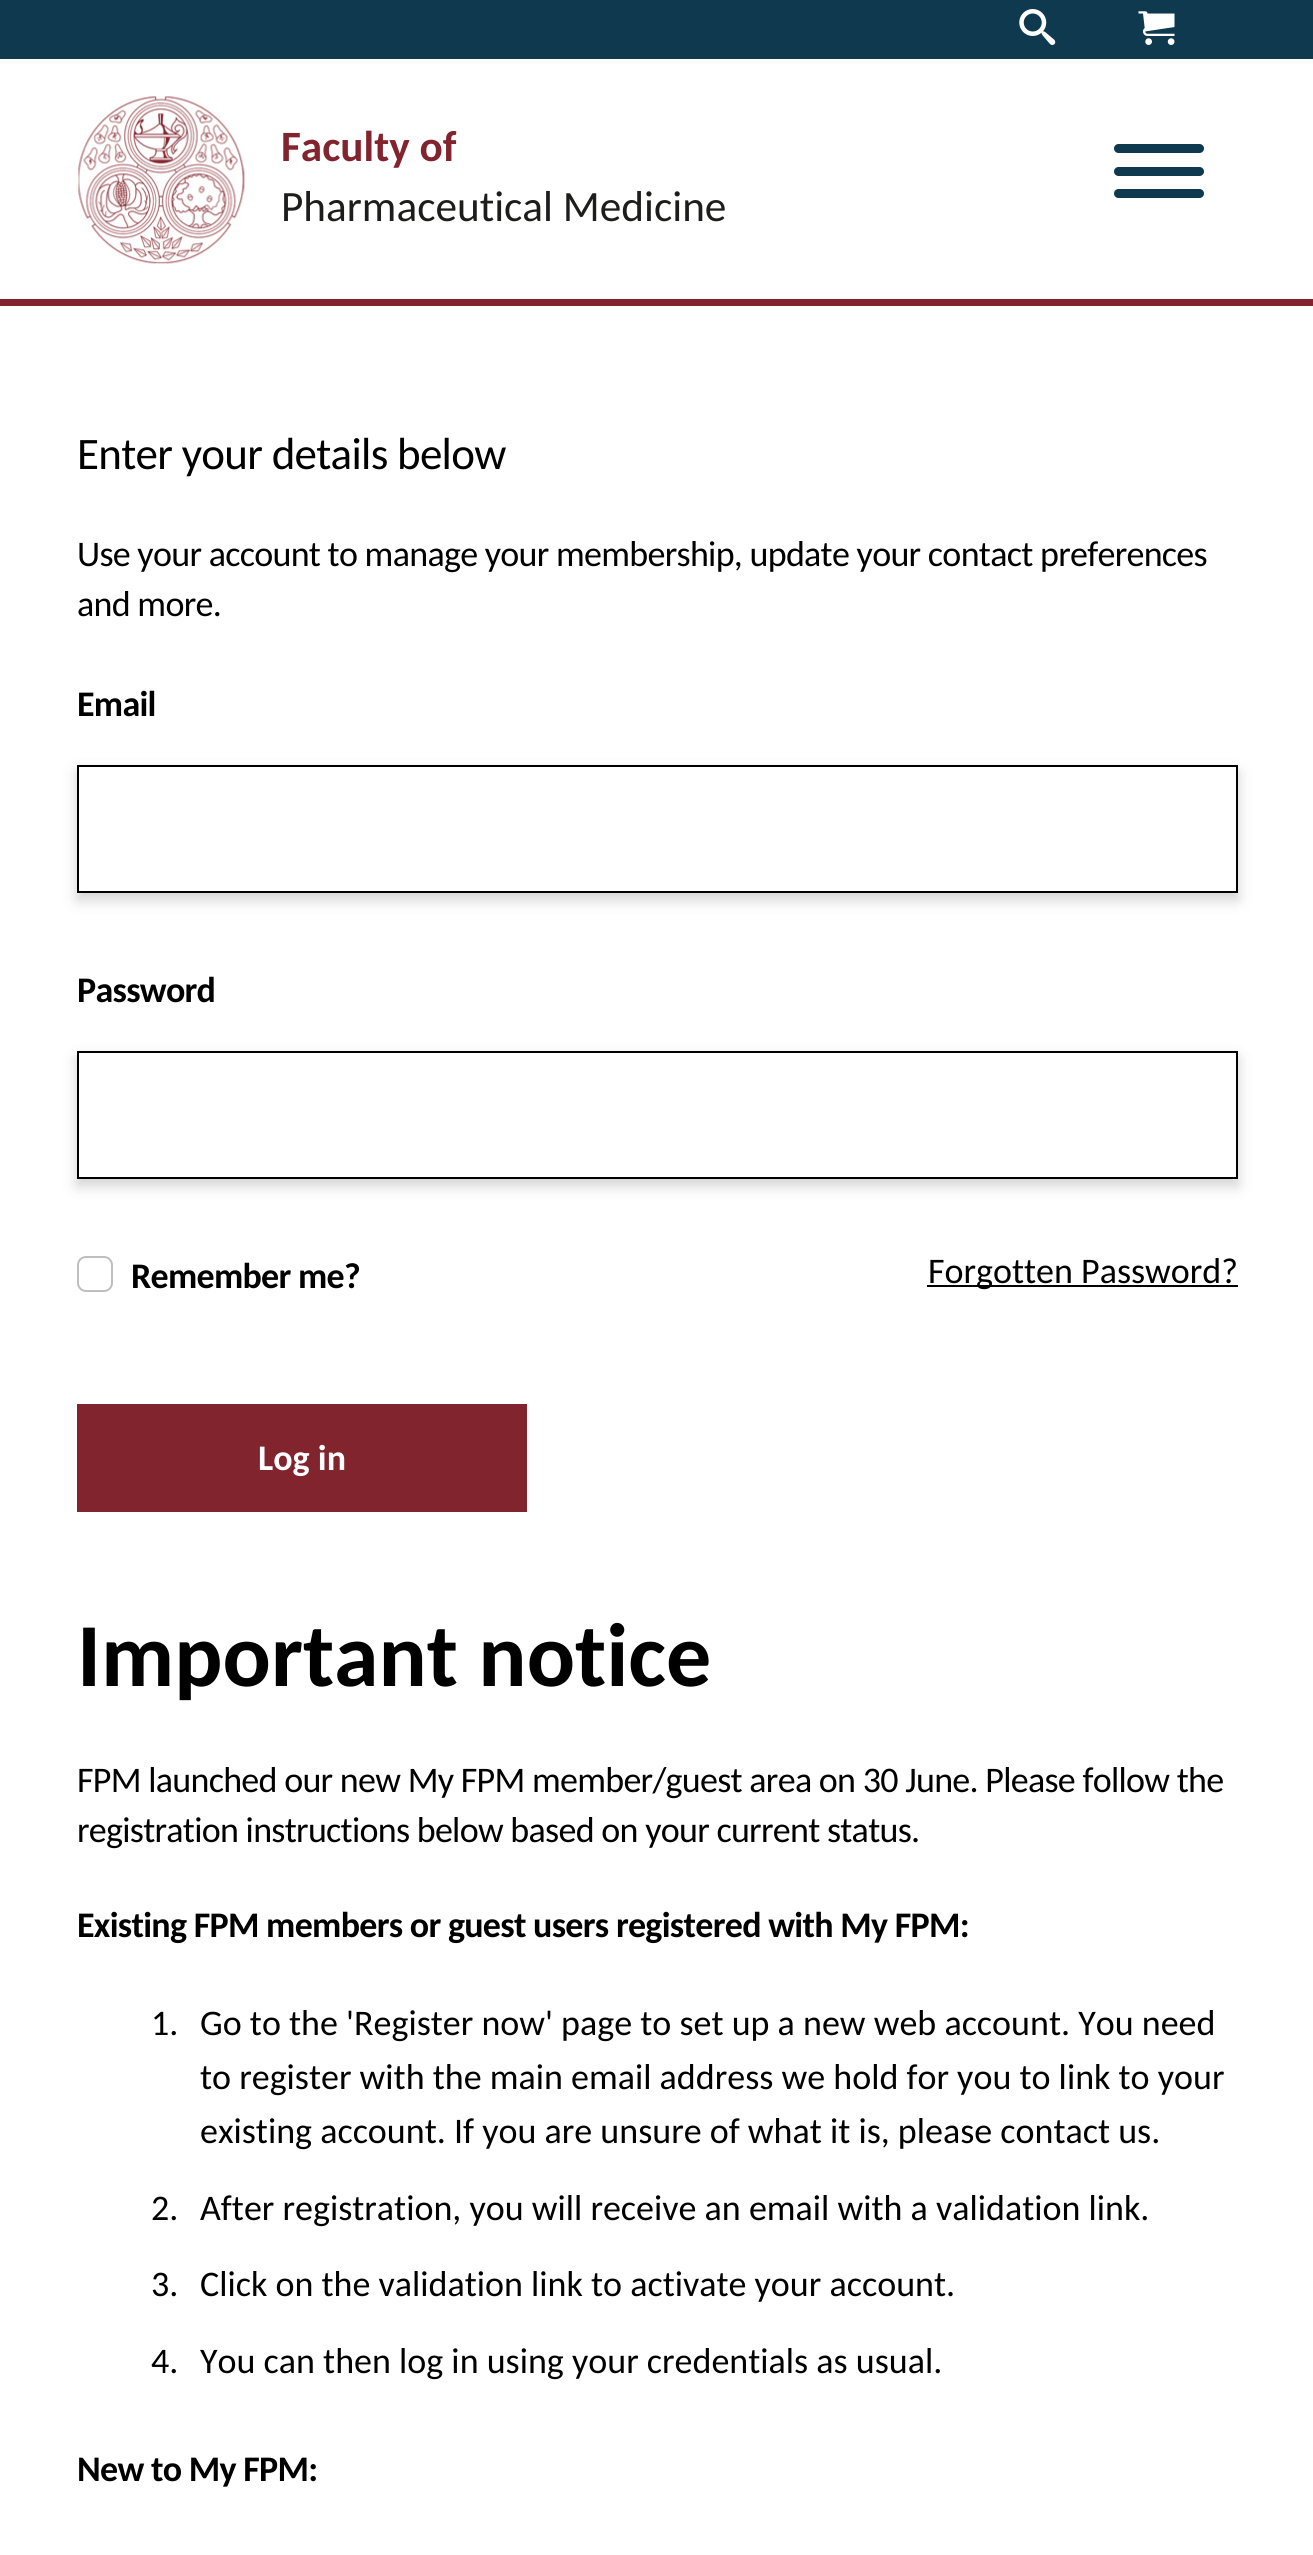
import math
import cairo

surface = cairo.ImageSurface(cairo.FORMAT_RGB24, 1313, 2555)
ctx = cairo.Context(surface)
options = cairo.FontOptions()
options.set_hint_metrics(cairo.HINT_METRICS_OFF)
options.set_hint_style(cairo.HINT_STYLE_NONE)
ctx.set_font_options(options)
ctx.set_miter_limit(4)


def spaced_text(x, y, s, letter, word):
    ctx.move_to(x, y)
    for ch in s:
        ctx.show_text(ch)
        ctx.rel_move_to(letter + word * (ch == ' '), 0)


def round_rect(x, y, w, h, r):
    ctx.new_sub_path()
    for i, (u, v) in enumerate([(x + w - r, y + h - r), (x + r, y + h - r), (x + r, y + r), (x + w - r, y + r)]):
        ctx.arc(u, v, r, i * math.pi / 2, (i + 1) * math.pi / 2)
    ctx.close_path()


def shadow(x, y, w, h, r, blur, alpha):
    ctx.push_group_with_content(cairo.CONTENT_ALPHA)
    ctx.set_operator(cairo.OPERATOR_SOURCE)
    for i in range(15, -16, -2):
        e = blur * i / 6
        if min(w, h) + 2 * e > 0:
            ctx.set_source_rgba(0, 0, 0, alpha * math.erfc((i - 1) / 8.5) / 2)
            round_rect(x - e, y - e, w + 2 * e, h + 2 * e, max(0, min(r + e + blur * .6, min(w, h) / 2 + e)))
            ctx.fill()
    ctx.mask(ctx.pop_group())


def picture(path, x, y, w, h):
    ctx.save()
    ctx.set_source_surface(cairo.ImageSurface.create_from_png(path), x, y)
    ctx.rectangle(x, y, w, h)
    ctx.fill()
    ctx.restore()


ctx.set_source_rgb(1, 1, 1)
ctx.paint()
ctx.set_source_rgb(0.055, 0.224, 0.31)
ctx.rectangle(0, 0, 1313, 59)
ctx.fill()
picture("img1.png", 1019, 9, 37, 36)
picture("img2.png", 1138, 11, 37, 34)
ctx.set_source_rgb(0.51, 0.141, 0.176)
ctx.rectangle(0, 299, 1313, 7)
ctx.fill()
picture("img3.png", 78, 96, 167, 168)
ctx.select_font_face("Carlito", cairo.FONT_SLANT_NORMAL, cairo.FONT_WEIGHT_BOLD)
ctx.set_font_size(43.25)
ctx.move_to(281, 161)
ctx.show_text("Faculty of")
ctx.select_font_face("Carlito")
ctx.set_source_rgb(0.114, 0.114, 0.106)
ctx.move_to(281, 221)
ctx.show_text("Pharmaceutical Medicine")
ctx.set_source_rgb(0.055, 0.224, 0.31)
round_rect(1114, 167, 90, 9, 4.5)
ctx.fill()
round_rect(1114, 144, 90, 9, 4.5)
ctx.fill()
round_rect(1114, 189, 90, 9, 4.5)
ctx.fill()
ctx.set_font_size(45)
ctx.set_source_rgb(0, 0, 0)
spaced_text(77, 469, "Enter your details below", -0.72, 0)
ctx.set_font_size(36)
spaced_text(77, 566, "Use your account to manage your membership, update your contact preferences", -0.72, 0)
spaced_text(77, 616, "and more.", -0.72, 0)
ctx.select_font_face("Carlito", cairo.FONT_SLANT_NORMAL, cairo.FONT_WEIGHT_BOLD)
spaced_text(77, 716, "Email", -0.72, 0)
ctx.save()
ctx.set_fill_rule(cairo.FILL_RULE_EVEN_ODD)
ctx.new_path()
ctx.move_to(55, 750)
ctx.line_to(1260, 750)
ctx.line_to(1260, 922)
ctx.line_to(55, 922)
ctx.close_path()
ctx.move_to(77, 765)
ctx.line_to(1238, 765)
ctx.line_to(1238, 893)
ctx.line_to(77, 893)
ctx.close_path()
ctx.clip()
ctx.set_source_rgb(0.129, 0.129, 0.129)
shadow(77, 772, 1161, 128, 0, 7, 0.2)
ctx.restore()
ctx.rectangle(78, 766, 1159, 126)
ctx.stroke()
spaced_text(77, 1002, "Password", -0.72, 0)
ctx.save()
ctx.set_fill_rule(cairo.FILL_RULE_EVEN_ODD)
ctx.new_path()
ctx.move_to(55, 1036)
ctx.line_to(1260, 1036)
ctx.line_to(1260, 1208)
ctx.line_to(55, 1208)
ctx.close_path()
ctx.move_to(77, 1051)
ctx.line_to(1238, 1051)
ctx.line_to(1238, 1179)
ctx.line_to(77, 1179)
ctx.close_path()
ctx.clip()
ctx.set_source_rgb(0.129, 0.129, 0.129)
shadow(77, 1058, 1161, 128, 0, 7, 0.2)
ctx.restore()
ctx.rectangle(78, 1052, 1159, 126)
ctx.stroke()
round_rect(78, 1257, 34, 34, 8)
ctx.set_source_rgb(0.749, 0.749, 0.749)
ctx.stroke()
ctx.set_source_rgb(0, 0, 0)
spaced_text(131, 1288, "Remember me?", -0.72, 0)
ctx.rectangle(927, 1285, 311, 2)
ctx.fill()
ctx.select_font_face("Carlito")
ctx.move_to(928, 1283)
ctx.show_text("Forgotten Password?")
ctx.set_source_rgb(0.51, 0.141, 0.176)
ctx.rectangle(77, 1404, 450, 108)
ctx.fill()
ctx.select_font_face("Carlito", cairo.FONT_SLANT_NORMAL, cairo.FONT_WEIGHT_BOLD)
ctx.set_source_rgb(1, 1, 1)
ctx.move_to(258, 1470)
ctx.show_text("Log in")
ctx.set_font_size(90)
ctx.set_source_rgb(0, 0, 0)
ctx.move_to(77, 1686)
ctx.show_text("Important notice")
ctx.select_font_face("Carlito")
ctx.set_font_size(36)
spaced_text(77, 1792, "FPM launched our new My FPM member/guest area on 30 June. Please follow the", -0.72, 0)
spaced_text(77, 1842, "registration instructions below based on your current status.", -0.72, 0)
ctx.select_font_face("Carlito", cairo.FONT_SLANT_NORMAL, cairo.FONT_WEIGHT_BOLD)
spaced_text(77, 1937, "Existing FPM members or guest users registered with My FPM:", -0.72, 0)
ctx.select_font_face("Carlito")
ctx.move_to(151, 2035)
ctx.show_text("1.")
ctx.move_to(200, 2035)
ctx.show_text("Go to the 'Register now' page to set up a new web account. You need")
ctx.move_to(200, 2089)
ctx.show_text("to register with the main email address we hold for you to link to your")
ctx.move_to(200, 2143)
ctx.show_text("existing account. If you are unsure of what it is, please contact us.")
ctx.move_to(151, 2220)
ctx.show_text("2.")
ctx.move_to(200, 2220)
ctx.show_text("After registration, you will receive an email with a validation link.")
ctx.move_to(151, 2296)
ctx.show_text("3.")
ctx.move_to(200, 2296)
ctx.show_text("Click on the validation link to activate your account.")
ctx.move_to(151, 2373)
ctx.show_text("4.")
ctx.move_to(200, 2373)
ctx.show_text("You can then log in using your credentials as usual.")
ctx.select_font_face("Carlito", cairo.FONT_SLANT_NORMAL, cairo.FONT_WEIGHT_BOLD)
spaced_text(77, 2481, "New to My FPM:", -0.72, 0)
surface.write_to_png("page.png")
